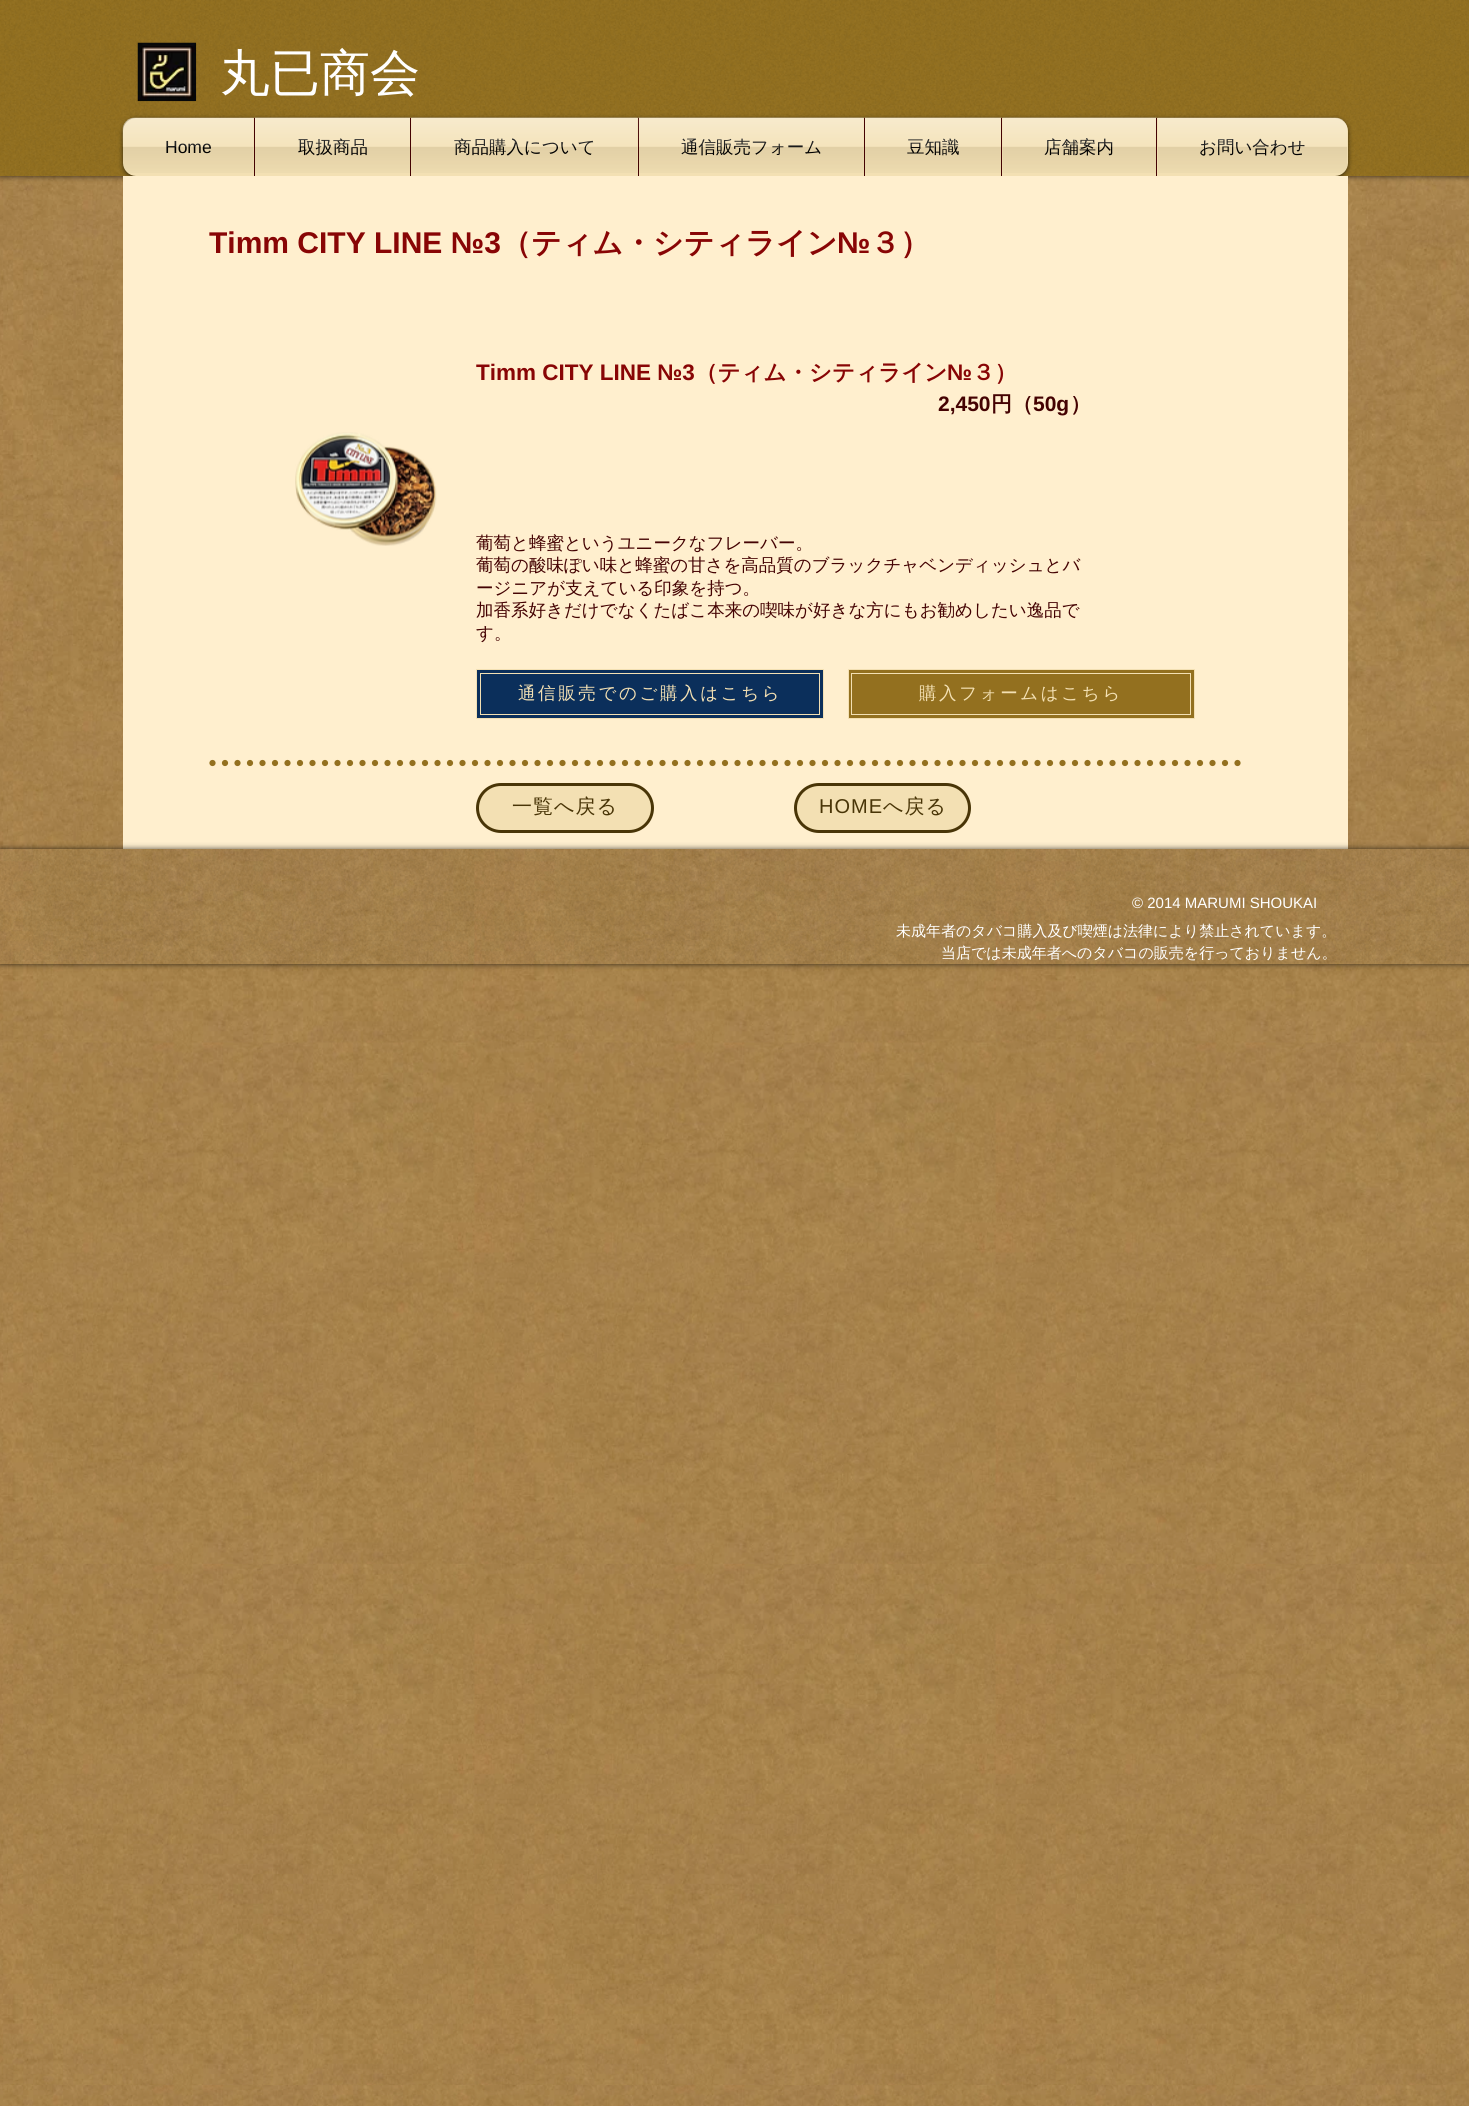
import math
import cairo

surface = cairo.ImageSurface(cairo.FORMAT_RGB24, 1469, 2106)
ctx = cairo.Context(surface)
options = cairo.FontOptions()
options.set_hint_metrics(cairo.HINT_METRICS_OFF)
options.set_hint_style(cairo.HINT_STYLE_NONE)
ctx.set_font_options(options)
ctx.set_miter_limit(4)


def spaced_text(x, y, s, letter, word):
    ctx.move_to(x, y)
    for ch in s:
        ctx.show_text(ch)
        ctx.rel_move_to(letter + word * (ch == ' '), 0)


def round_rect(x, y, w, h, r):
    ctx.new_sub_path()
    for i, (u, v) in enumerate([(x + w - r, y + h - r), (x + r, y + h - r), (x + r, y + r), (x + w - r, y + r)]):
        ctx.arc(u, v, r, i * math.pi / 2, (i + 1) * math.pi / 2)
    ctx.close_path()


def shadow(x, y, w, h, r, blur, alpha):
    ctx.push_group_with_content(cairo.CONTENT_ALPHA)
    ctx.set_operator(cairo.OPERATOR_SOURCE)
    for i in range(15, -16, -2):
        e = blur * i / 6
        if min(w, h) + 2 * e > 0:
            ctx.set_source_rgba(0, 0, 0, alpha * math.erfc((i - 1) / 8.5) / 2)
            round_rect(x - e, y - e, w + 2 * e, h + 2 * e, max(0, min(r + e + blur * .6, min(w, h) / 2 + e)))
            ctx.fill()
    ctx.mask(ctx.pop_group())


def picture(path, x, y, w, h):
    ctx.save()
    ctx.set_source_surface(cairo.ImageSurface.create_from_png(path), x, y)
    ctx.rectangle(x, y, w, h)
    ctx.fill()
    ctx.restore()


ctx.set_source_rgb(1, 1, 1)
ctx.paint()
picture("img13.png", 0, 176, 1469, 1930)
ctx.set_source_rgb(0, 0, 0)
shadow(0, 0, 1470, 176, 0, 3, 0.7)
ctx.set_source_rgb(0.576, 0.439, 0.122)
ctx.rectangle(0, 0, 1469, 176)
ctx.fill()
picture("img1.png", 0, 0, 1469, 176)
picture("img2.png", 137, 42, 60, 60)
ctx.select_font_face("WenQuanYi Zen Hei Medium")
ctx.set_font_size(50)
ctx.set_source_rgb(1, 1, 1)
ctx.move_to(220, 90)
ctx.show_text("丸已商会")
ctx.set_source_rgb(0, 0, 0)
shadow(123, 119, 1225, 59, 13, 2.5, 0.6)
picture("img3.png", 122, 117, 1226, 56)
ctx.set_source_rgb(0.953, 0.878, 0.702)
ctx.new_path()
ctx.move_to(136, 118)
ctx.line_to(254, 118)
ctx.line_to(254, 176)
ctx.line_to(136, 176)
ctx.curve_to(129, 176, 123, 170, 123, 163)
ctx.line_to(123, 131)
ctx.curve_to(123, 124, 129, 118, 136, 118)
ctx.close_path()
ctx.fill()
ctx.select_font_face("Liberation Sans")
ctx.set_font_size(17.5)
ctx.set_source_rgb(0, 0, 0)
ctx.move_to(165, 153)
ctx.show_text("Home")
picture("img4.png", 122, 117, 132, 56)
ctx.set_source_rgb(0.953, 0.878, 0.702)
ctx.rectangle(255, 118, 155, 58)
ctx.fill()
ctx.set_source_rgb(0.267, 0.008, 0.008)
ctx.rectangle(254, 118, 1, 58)
ctx.fill()
ctx.select_font_face("WenQuanYi Zen Hei Medium")
ctx.set_source_rgb(0, 0, 0)
ctx.move_to(298, 153)
ctx.show_text("取扱商品")
picture("img5.png", 255, 117, 155, 56)
ctx.set_source_rgb(0.953, 0.878, 0.702)
ctx.rectangle(411, 118, 227, 58)
ctx.fill()
ctx.set_source_rgb(0.267, 0.008, 0.008)
ctx.rectangle(410, 118, 1, 58)
ctx.fill()
ctx.set_source_rgb(0, 0, 0)
ctx.move_to(454, 153)
ctx.show_text("商品購入について")
picture("img6.png", 411, 117, 227, 56)
ctx.set_source_rgb(0.953, 0.878, 0.702)
ctx.rectangle(639, 118, 225, 58)
ctx.fill()
ctx.set_source_rgb(0.267, 0.008, 0.008)
ctx.rectangle(638, 118, 1, 58)
ctx.fill()
ctx.set_source_rgb(0, 0, 0)
ctx.move_to(681, 153)
ctx.show_text("通信販売フォーム")
picture("img7.png", 638, 117, 226, 56)
ctx.set_source_rgb(0.953, 0.878, 0.702)
ctx.rectangle(865, 118, 136, 58)
ctx.fill()
ctx.set_source_rgb(0.267, 0.008, 0.008)
ctx.rectangle(864, 118, 1, 58)
ctx.fill()
ctx.set_source_rgb(0, 0, 0)
ctx.move_to(907, 153)
ctx.show_text("豆知識")
picture("img8.png", 865, 117, 137, 56)
ctx.set_source_rgb(0.953, 0.878, 0.702)
ctx.rectangle(1002, 118, 154, 58)
ctx.fill()
ctx.set_source_rgb(0.267, 0.008, 0.008)
ctx.rectangle(1001, 118, 1, 58)
ctx.fill()
ctx.set_source_rgb(0, 0, 0)
ctx.move_to(1044, 153)
ctx.show_text("店舗案内")
picture("img9.png", 1002, 117, 155, 56)
ctx.set_source_rgb(0.953, 0.878, 0.702)
ctx.new_path()
ctx.move_to(1156, 118)
ctx.line_to(1335, 118)
ctx.curve_to(1342, 118, 1348, 124, 1348, 131)
ctx.line_to(1348, 163)
ctx.curve_to(1348, 170, 1342, 176, 1335, 176)
ctx.line_to(1156, 176)
ctx.close_path()
ctx.fill()
ctx.set_source_rgb(0.267, 0.008, 0.008)
ctx.rectangle(1156, 118, 1, 58)
ctx.fill()
ctx.set_source_rgb(0, 0, 0)
ctx.move_to(1199, 153)
ctx.show_text("お問い合わせ")
picture("img10.png", 1157, 117, 191, 56)
ctx.set_source_rgb(1, 0.937, 0.808)
ctx.rectangle(123, 176, 1225, 673)
ctx.fill()
ctx.select_font_face("Liberation Sans", cairo.FONT_SLANT_NORMAL, cairo.FONT_WEIGHT_BOLD)
ctx.set_font_size(30)
ctx.set_source_rgb(0.533, 0.02, 0.02)
ctx.move_to(209, 253)
ctx.show_text("Timm CITY LINE №3")
ctx.select_font_face("WenQuanYi Zen Hei", cairo.FONT_SLANT_NORMAL, cairo.FONT_WEIGHT_BOLD)
ctx.move_to(501, 253)
ctx.show_text("（ティム・シティライン")
ctx.select_font_face("Liberation Sans", cairo.FONT_SLANT_NORMAL, cairo.FONT_WEIGHT_BOLD)
ctx.move_to(837, 253)
ctx.show_text("№")
ctx.select_font_face("WenQuanYi Zen Hei", cairo.FONT_SLANT_NORMAL, cairo.FONT_WEIGHT_BOLD)
ctx.move_to(870, 253)
ctx.show_text("３）")
ctx.select_font_face("Liberation Sans", cairo.FONT_SLANT_NORMAL, cairo.FONT_WEIGHT_BOLD)
ctx.set_font_size(22.5)
ctx.move_to(476, 380)
ctx.show_text("Timm CITY LINE №3")
ctx.select_font_face("WenQuanYi Zen Hei", cairo.FONT_SLANT_NORMAL, cairo.FONT_WEIGHT_BOLD)
ctx.move_to(695, 380)
ctx.show_text("（ティム・シティライン")
ctx.select_font_face("Liberation Sans", cairo.FONT_SLANT_NORMAL, cairo.FONT_WEIGHT_BOLD)
ctx.move_to(947, 380)
ctx.show_text("№")
ctx.select_font_face("WenQuanYi Zen Hei", cairo.FONT_SLANT_NORMAL, cairo.FONT_WEIGHT_BOLD)
ctx.move_to(972, 380)
ctx.show_text("３）")
ctx.select_font_face("Liberation Sans", cairo.FONT_SLANT_NORMAL, cairo.FONT_WEIGHT_BOLD)
ctx.set_font_size(21)
ctx.set_source_rgb(0.267, 0.008, 0.008)
ctx.move_to(938, 411)
ctx.show_text("2,450")
ctx.select_font_face("WenQuanYi Zen Hei", cairo.FONT_SLANT_NORMAL, cairo.FONT_WEIGHT_BOLD)
ctx.move_to(991, 411)
ctx.show_text("円（")
ctx.select_font_face("Liberation Sans", cairo.FONT_SLANT_NORMAL, cairo.FONT_WEIGHT_BOLD)
ctx.move_to(1033, 411)
ctx.show_text("50g")
ctx.select_font_face("WenQuanYi Zen Hei", cairo.FONT_SLANT_NORMAL, cairo.FONT_WEIGHT_BOLD)
ctx.move_to(1070, 411)
ctx.show_text("）")
picture("img11.png", 295, 432, 142, 114)
ctx.select_font_face("WenQuanYi Zen Hei Medium")
ctx.set_font_size(17.5)
ctx.move_to(476, 549)
ctx.show_text("葡萄と蜂蜜というユニークなフレーバー。")
ctx.move_to(476, 571)
ctx.show_text("葡萄の酸味ぽい味と蜂蜜の甘さを高品質のブラックチャベンディッシュとバ")
ctx.move_to(476, 594)
ctx.show_text("ージニアが支えている印象を持つ。")
ctx.move_to(476, 616)
ctx.show_text("加香系好きだけでなくたばこ本来の喫味が好きな方にもお勧めしたい逸品で")
ctx.move_to(476, 639)
ctx.show_text("す。")
ctx.set_source_rgb(0.043, 0.184, 0.357)
ctx.rectangle(476.5, 669.5, 347, 49)
ctx.fill_preserve()
ctx.set_source_rgb(0.953, 0.878, 0.702)
ctx.set_line_width(1)
ctx.stroke()
ctx.rectangle(480.5, 673.5, 339, 41)
ctx.stroke()
spaced_text(518, 699, "通信販売でのご購入はこちら", 2.6, 0)
ctx.set_source_rgb(0.576, 0.439, 0.122)
ctx.rectangle(848.5, 669.5, 346, 49)
ctx.fill_preserve()
ctx.set_source_rgb(0.953, 0.878, 0.702)
ctx.stroke()
ctx.rectangle(851.5, 673.5, 339, 41)
ctx.stroke()
spaced_text(919, 699, "購入フォームはこちら", 2.6, 0)
ctx.new_path()
ctx.move_to(212.5, 763)
ctx.line_to(1246, 763)
ctx.set_source_rgb(0.576, 0.439, 0.122)
ctx.set_line_width(6.2)
ctx.set_line_cap(cairo.LINE_CAP_ROUND)
ctx.set_dash([0, 12.5])
ctx.stroke()
ctx.set_source_rgb(0.953, 0.878, 0.702)
round_rect(477.5, 784.5, 175, 47, 23.5)
ctx.fill_preserve()
ctx.set_source_rgb(0.286, 0.208, 0.031)
ctx.set_line_width(3)
ctx.set_line_cap(cairo.LINE_CAP_BUTT)
ctx.set_dash([])
ctx.stroke()
ctx.set_font_size(20)
spaced_text(512, 813, "一覧へ戻る", 1, 0)
ctx.set_source_rgb(0.953, 0.878, 0.702)
round_rect(795.5, 784.5, 174, 47, 23.5)
ctx.fill_preserve()
ctx.set_source_rgb(0.286, 0.208, 0.031)
ctx.stroke()
ctx.select_font_face("Liberation Sans")
spaced_text(819, 813, "HOME", 1, 0)
ctx.select_font_face("WenQuanYi Zen Hei Medium")
spaced_text(883, 813, "へ戻る", 1, 0)
ctx.save()
ctx.set_fill_rule(cairo.FILL_RULE_EVEN_ODD)
ctx.new_path()
ctx.move_to(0, 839)
ctx.line_to(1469, 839)
ctx.line_to(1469, 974)
ctx.line_to(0, 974)
ctx.close_path()
ctx.move_to(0, 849)
ctx.line_to(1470, 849)
ctx.line_to(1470, 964)
ctx.line_to(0, 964)
ctx.close_path()
ctx.clip()
ctx.set_source_rgb(0, 0, 0)
shadow(0, 849, 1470, 115, 0, 3, 0.7)
ctx.restore()
picture("img12.png", 0, 849, 1469, 115)
ctx.select_font_face("Liberation Sans")
ctx.set_font_size(15)
ctx.set_source_rgb(1, 1, 1)
ctx.move_to(1132, 908)
ctx.show_text("© 2014 MARUMI SHOUKAI")
ctx.select_font_face("WenQuanYi Zen Hei Medium")
ctx.move_to(896, 936)
ctx.show_text("未成年者のタバコ購入及び喫煙は法律により禁止されています。")
ctx.move_to(941, 958)
ctx.show_text("当店では未成年者へのタバコの販売を行っておりません。")
surface.write_to_png("page.png")
